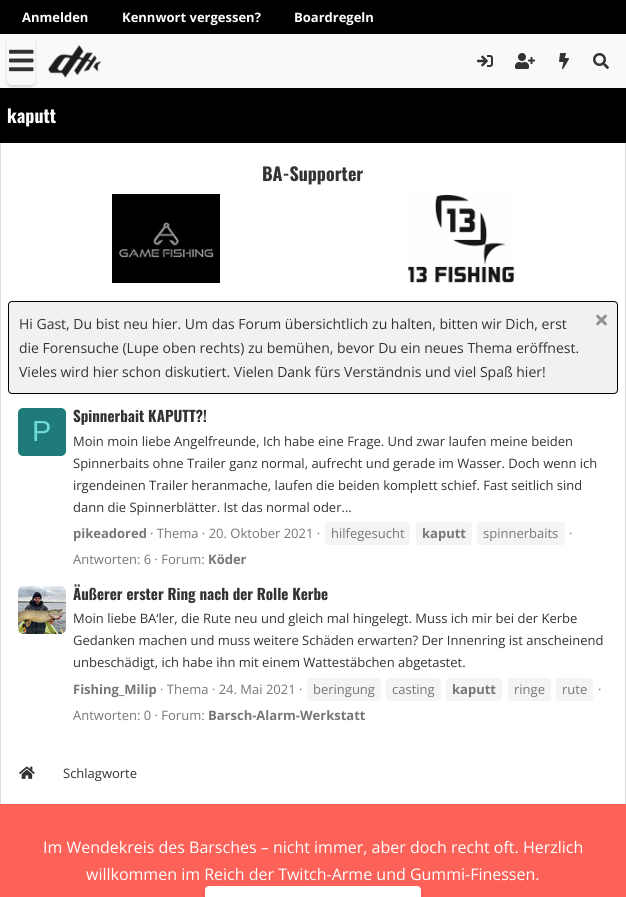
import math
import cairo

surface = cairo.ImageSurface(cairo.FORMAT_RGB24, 626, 897)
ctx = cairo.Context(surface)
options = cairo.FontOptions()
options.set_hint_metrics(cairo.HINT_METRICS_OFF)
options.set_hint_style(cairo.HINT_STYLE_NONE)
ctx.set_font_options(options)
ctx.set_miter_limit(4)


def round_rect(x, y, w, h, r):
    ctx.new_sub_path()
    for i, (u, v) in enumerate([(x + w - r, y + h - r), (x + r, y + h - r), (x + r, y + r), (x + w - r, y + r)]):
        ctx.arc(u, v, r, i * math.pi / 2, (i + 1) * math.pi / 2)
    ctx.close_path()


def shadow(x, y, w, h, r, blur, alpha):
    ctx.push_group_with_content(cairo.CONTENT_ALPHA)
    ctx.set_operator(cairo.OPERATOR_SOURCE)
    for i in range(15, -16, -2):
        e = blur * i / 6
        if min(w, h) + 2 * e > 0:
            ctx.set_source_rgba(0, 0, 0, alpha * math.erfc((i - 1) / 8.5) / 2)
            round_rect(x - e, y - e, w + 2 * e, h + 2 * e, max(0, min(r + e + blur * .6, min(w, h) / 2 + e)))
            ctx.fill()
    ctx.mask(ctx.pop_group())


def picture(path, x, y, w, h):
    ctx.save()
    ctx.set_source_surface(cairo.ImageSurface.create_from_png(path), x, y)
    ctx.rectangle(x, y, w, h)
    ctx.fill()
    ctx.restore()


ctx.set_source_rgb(1, 1, 1)
ctx.paint()
ctx.set_source_rgb(0.976, 0.976, 0.976)
ctx.rectangle(0, 34, 626, 54)
ctx.fill()
ctx.save()
ctx.set_fill_rule(cairo.FILL_RULE_EVEN_ODD)
ctx.new_path()
ctx.move_to(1, 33)
ctx.line_to(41, 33)
ctx.line_to(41, 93)
ctx.line_to(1, 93)
ctx.close_path()
ctx.move_to(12, 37)
ctx.line_to(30, 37)
ctx.curve_to(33, 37, 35, 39, 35, 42)
ctx.line_to(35, 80)
ctx.curve_to(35, 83, 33, 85, 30, 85)
ctx.line_to(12, 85)
ctx.curve_to(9, 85, 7, 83, 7, 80)
ctx.line_to(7, 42)
ctx.curve_to(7, 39, 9, 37, 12, 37)
ctx.close_path()
ctx.clip()
ctx.set_source_rgb(0, 0, 0)
shadow(7, 39, 28, 48, 5, 1.5, 0.15)
ctx.restore()
ctx.set_source_rgb(0, 0, 0)
ctx.rectangle(0, 0, 626, 34)
ctx.fill()
ctx.select_font_face("Open Sans", cairo.FONT_SLANT_NORMAL, cairo.FONT_WEIGHT_BOLD)
ctx.set_font_size(13)
ctx.set_source_rgb(1, 1, 1)
ctx.move_to(22, 22)
ctx.show_text("Anmelden")
ctx.move_to(122, 22)
ctx.show_text("Kennwort vergessen?")
ctx.move_to(294, 22)
ctx.show_text("Boardregeln")
picture("img1.png", 9, 49, 25, 23)
picture("img2.png", 48, 45, 53, 33)
picture("img3.png", 477, 55, 16, 12)
picture("img4.png", 515, 53, 20, 16)
picture("img5.png", 559, 53, 10, 16)
picture("img6.png", 593, 53, 16, 16)
ctx.set_source_rgb(0, 0, 0)
ctx.rectangle(0, 88, 626, 55)
ctx.fill()
ctx.select_font_face("Oswald", cairo.FONT_SLANT_NORMAL, cairo.FONT_WEIGHT_BOLD)
ctx.set_font_size(18)
ctx.set_source_rgb(1, 1, 1)
ctx.move_to(7, 123)
ctx.show_text("kaputt")
ctx.set_source_rgb(0.859, 0.859, 0.859)
ctx.rectangle(625, 143, 1, 661)
ctx.fill()
ctx.rectangle(0, 143, 1, 661)
ctx.fill()
ctx.set_source_rgb(0.2, 0.2, 0.2)
ctx.move_to(262, 181)
ctx.show_text("BA-Supporter")
picture("img7.png", 112, 194, 108, 89)
picture("img8.png", 408, 194, 107, 89)
ctx.set_source_rgb(0.945, 0.945, 0.945)
round_rect(8.5, 301.5, 609, 92, 3.5)
ctx.fill_preserve()
ctx.set_source_rgb(0, 0, 0)
ctx.set_line_width(1)
ctx.stroke()
ctx.select_font_face("Open Sans")
ctx.set_font_size(14)
ctx.set_source_rgb(0.2, 0.2, 0.2)
ctx.move_to(19, 329)
ctx.show_text("Hi Gast, Du bist neu hier. Um das Forum übersichtlich zu halten, bitten wir Dich, erst")
picture("img9.png", 596, 314, 11, 12)
ctx.move_to(19, 353)
ctx.show_text("die Forensuche (Lupe oben rechts) zu bemühen, bevor Du ein neues Thema eröffnest.")
ctx.move_to(19, 377)
ctx.show_text("Vieles wird hier schon diskutiert. Vielen Dank fürs Verständnis und viel Spaß hier!")
ctx.set_source_rgb(0.122, 0.478, 0.478)
round_rect(18, 408, 48, 48, 5)
ctx.fill()
ctx.select_font_face("Liberation Sans")
ctx.set_font_size(29)
ctx.set_source_rgb(0.439, 0.859, 0.859)
ctx.move_to(32, 441)
ctx.show_text("P")
ctx.select_font_face("Oswald", cairo.FONT_SLANT_NORMAL, cairo.FONT_WEIGHT_BOLD)
ctx.set_font_size(15)
ctx.set_source_rgb(0.2, 0.2, 0.2)
ctx.move_to(73, 422)
ctx.show_text("Spinnerbait KAPUTT?!")
ctx.select_font_face("Open Sans")
ctx.set_font_size(13)
ctx.move_to(73, 446)
ctx.show_text("Moin moin liebe Angelfreunde, Ich habe eine Frage. Und zwar laufen meine beiden")
ctx.move_to(73, 468)
ctx.show_text("Spinnerbaits ohne Trailer ganz normal, aufrecht und gerade im Wasser. Doch wenn ich")
ctx.move_to(73, 490)
ctx.show_text("irgendeinen Trailer heranmache, laufen die beiden komplett schief. Fast seitlich sind")
ctx.move_to(73, 512)
ctx.show_text("dann die Spinnerblätter. Ist das normal oder...")
ctx.select_font_face("Open Sans", cairo.FONT_SLANT_NORMAL, cairo.FONT_WEIGHT_BOLD)
ctx.set_source_rgb(0.467, 0.467, 0.467)
ctx.move_to(73, 538)
ctx.show_text("pikeadored")
ctx.select_font_face("Open Sans")
ctx.move_to(150, 538)
ctx.show_text("· Thema · 20. Oktober 2021 ·")
ctx.set_source_rgb(0.957, 0.957, 0.957)
round_rect(324.5, 521.5, 86, 24, 3.5)
ctx.fill_preserve()
ctx.set_source_rgb(1, 1, 1)
ctx.stroke()
ctx.set_source_rgb(0.467, 0.467, 0.467)
ctx.move_to(331, 538)
ctx.show_text("hilfegesucht")
ctx.set_source_rgb(0.957, 0.957, 0.957)
round_rect(415.5, 521.5, 57, 24, 3.5)
ctx.fill_preserve()
ctx.set_source_rgb(1, 1, 1)
ctx.stroke()
ctx.select_font_face("Open Sans", cairo.FONT_SLANT_NORMAL, cairo.FONT_WEIGHT_BOLD)
ctx.set_source_rgb(0.467, 0.467, 0.467)
ctx.move_to(422, 538)
ctx.show_text("kaputt")
ctx.set_source_rgb(0.957, 0.957, 0.957)
round_rect(476.5, 521.5, 89, 24, 3.5)
ctx.fill_preserve()
ctx.set_source_rgb(1, 1, 1)
ctx.stroke()
ctx.select_font_face("Open Sans")
ctx.set_source_rgb(0.467, 0.467, 0.467)
ctx.move_to(483, 538)
ctx.show_text("spinnerbaits")
ctx.move_to(569, 538)
ctx.show_text("·")
ctx.move_to(73, 564)
ctx.show_text("Antworten: 6 · Forum:")
ctx.select_font_face("Open Sans", cairo.FONT_SLANT_NORMAL, cairo.FONT_WEIGHT_BOLD)
ctx.move_to(208, 564)
ctx.show_text("Köder")
picture("img10.png", 18, 586, 48, 48)
ctx.select_font_face("Oswald", cairo.FONT_SLANT_NORMAL, cairo.FONT_WEIGHT_BOLD)
ctx.set_font_size(15)
ctx.set_source_rgb(0.2, 0.2, 0.2)
ctx.move_to(73, 600)
ctx.show_text("Äußerer erster Ring nach der Rolle Kerbe")
ctx.select_font_face("Open Sans")
ctx.set_font_size(13)
ctx.move_to(73, 623)
ctx.show_text("Moin liebe BA‘ler, die Rute neu und gleich mal hingelegt. Muss ich mir bei der Kerbe")
ctx.move_to(73, 645)
ctx.show_text("Gedanken machen und muss weitere Schäden erwarten? Der Innenring ist anscheinend")
ctx.move_to(73, 667)
ctx.show_text("unbeschädigt, ich habe ihn mit einem Wattestäbchen abgetastet.")
ctx.select_font_face("Open Sans", cairo.FONT_SLANT_NORMAL, cairo.FONT_WEIGHT_BOLD)
ctx.set_source_rgb(0.467, 0.467, 0.467)
ctx.move_to(73, 694)
ctx.show_text("Fishing_Milip")
ctx.select_font_face("Open Sans")
ctx.move_to(160, 694)
ctx.show_text("· Thema · 24. Mai 2021 ·")
ctx.set_source_rgb(0.957, 0.957, 0.957)
round_rect(306.5, 677.5, 75, 24, 3.5)
ctx.fill_preserve()
ctx.set_source_rgb(1, 1, 1)
ctx.stroke()
ctx.set_source_rgb(0.467, 0.467, 0.467)
ctx.move_to(313, 694)
ctx.show_text("beringung")
ctx.set_source_rgb(0.957, 0.957, 0.957)
round_rect(385.5, 677.5, 56, 24, 3.5)
ctx.fill_preserve()
ctx.set_source_rgb(1, 1, 1)
ctx.stroke()
ctx.set_source_rgb(0.467, 0.467, 0.467)
ctx.move_to(392, 694)
ctx.show_text("casting")
ctx.set_source_rgb(0.957, 0.957, 0.957)
round_rect(445.5, 677.5, 57, 24, 3.5)
ctx.fill_preserve()
ctx.set_source_rgb(1, 1, 1)
ctx.stroke()
ctx.select_font_face("Open Sans", cairo.FONT_SLANT_NORMAL, cairo.FONT_WEIGHT_BOLD)
ctx.set_source_rgb(0.467, 0.467, 0.467)
ctx.move_to(452, 694)
ctx.show_text("kaputt")
ctx.set_source_rgb(0.957, 0.957, 0.957)
round_rect(507.5, 677.5, 44, 24, 3.5)
ctx.fill_preserve()
ctx.set_source_rgb(1, 1, 1)
ctx.stroke()
ctx.select_font_face("Open Sans")
ctx.set_source_rgb(0.467, 0.467, 0.467)
ctx.move_to(514, 694)
ctx.show_text("ringe")
ctx.set_source_rgb(0.957, 0.957, 0.957)
round_rect(555.5, 677.5, 38, 24, 3.5)
ctx.fill_preserve()
ctx.set_source_rgb(1, 1, 1)
ctx.stroke()
ctx.set_source_rgb(0.467, 0.467, 0.467)
ctx.move_to(562, 694)
ctx.show_text("rute")
ctx.move_to(598, 694)
ctx.show_text("·")
ctx.move_to(73, 720)
ctx.show_text("Antworten: 0 · Forum:")
ctx.select_font_face("Open Sans", cairo.FONT_SLANT_NORMAL, cairo.FONT_WEIGHT_BOLD)
ctx.move_to(208, 720)
ctx.show_text("Barsch-Alarm-Werkstatt")
picture("img11.png", 19, 766, 16, 13)
ctx.select_font_face("Open Sans")
ctx.set_source_rgb(0.2, 0.2, 0.2)
ctx.move_to(63, 778)
ctx.show_text("Schlagworte")
ctx.set_source_rgb(0.992, 0.384, 0.349)
ctx.rectangle(0, 804, 626, 93)
ctx.fill()
ctx.set_font_size(16)
ctx.set_source_rgb(1, 1, 1)
ctx.move_to(43, 853)
ctx.show_text("Im Wendekreis des Barsches – nicht immer, aber doch recht oft. Herzlich")
ctx.move_to(86, 880)
ctx.show_text("willkommen im Reich der Twitch-Arme und Gummi-Finessen.")
ctx.set_source_rgb(0, 0, 0)
shadow(205, 888, 216, 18, 4, 1.5, 0.15)
ctx.set_source_rgb(1, 1, 1)
round_rect(205, 886, 216, 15, 4)
ctx.fill()
surface.write_to_png("page.png")
